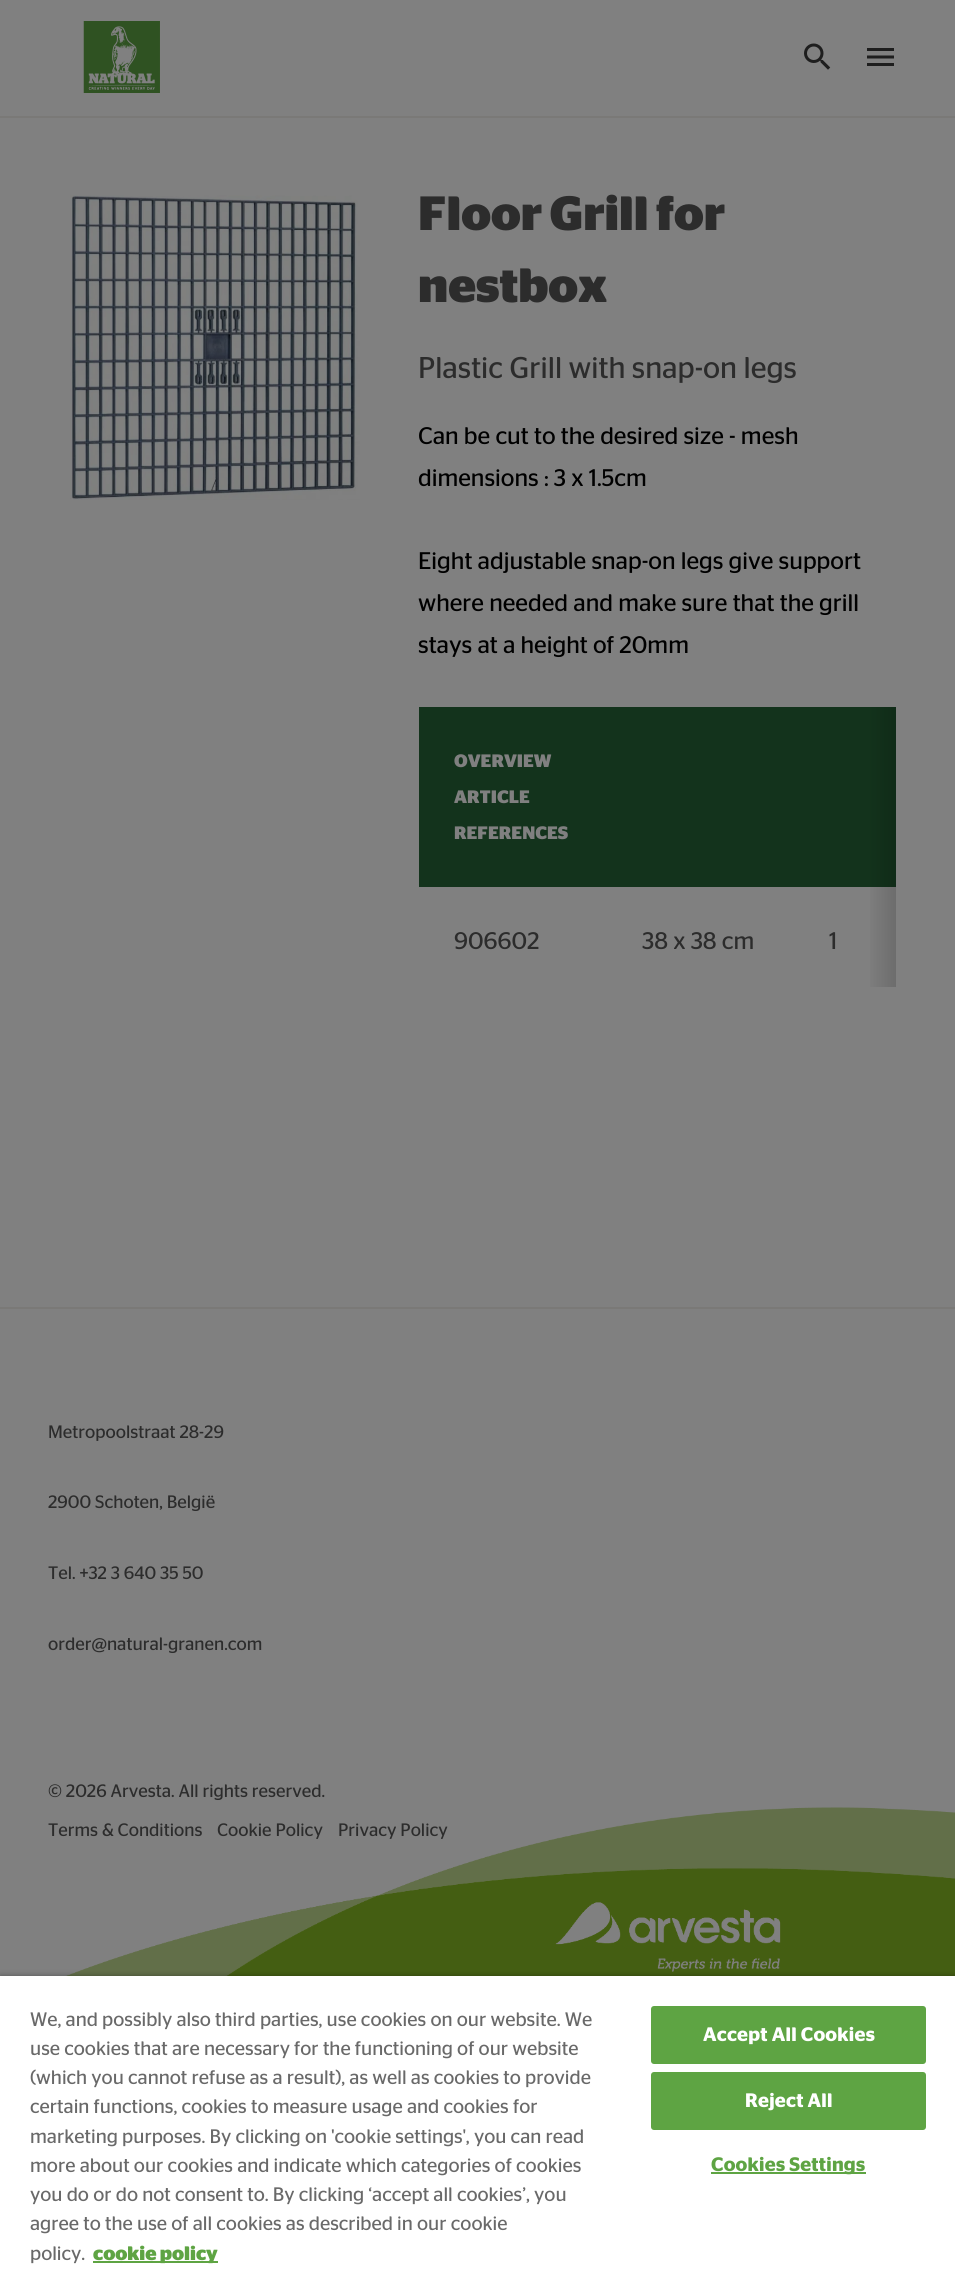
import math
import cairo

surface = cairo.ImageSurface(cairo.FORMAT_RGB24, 955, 2269)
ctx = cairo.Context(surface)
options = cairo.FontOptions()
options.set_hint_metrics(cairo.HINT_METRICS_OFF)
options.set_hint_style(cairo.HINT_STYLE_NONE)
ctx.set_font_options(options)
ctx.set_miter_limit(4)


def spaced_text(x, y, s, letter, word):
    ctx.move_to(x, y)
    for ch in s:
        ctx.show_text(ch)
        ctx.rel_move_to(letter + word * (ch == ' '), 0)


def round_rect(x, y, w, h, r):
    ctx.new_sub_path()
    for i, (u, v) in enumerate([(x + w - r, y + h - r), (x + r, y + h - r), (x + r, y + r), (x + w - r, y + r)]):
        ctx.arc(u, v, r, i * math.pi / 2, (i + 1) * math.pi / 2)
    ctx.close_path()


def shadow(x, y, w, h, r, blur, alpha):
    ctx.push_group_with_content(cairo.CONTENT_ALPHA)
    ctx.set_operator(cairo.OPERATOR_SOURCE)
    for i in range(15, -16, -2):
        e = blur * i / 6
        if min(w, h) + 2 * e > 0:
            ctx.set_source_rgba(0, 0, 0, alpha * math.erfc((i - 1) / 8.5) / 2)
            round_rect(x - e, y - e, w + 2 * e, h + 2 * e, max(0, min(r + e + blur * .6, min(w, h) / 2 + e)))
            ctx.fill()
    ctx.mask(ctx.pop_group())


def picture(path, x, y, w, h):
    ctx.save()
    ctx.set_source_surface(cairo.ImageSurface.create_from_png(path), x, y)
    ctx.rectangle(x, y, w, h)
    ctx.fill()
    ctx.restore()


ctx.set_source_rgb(0.502, 0.502, 0.502)
ctx.paint()
picture("img1.png", 83, 21, 77, 72)
picture("img2.png", 804, 43, 27, 27)
picture("img3.png", 867, 48, 27, 18)
ctx.set_source_rgb(0.478, 0.475, 0.467)
ctx.rectangle(0, 116, 955, 2)
ctx.fill()
picture("img4.png", 70, 195, 290, 305)
ctx.select_font_face("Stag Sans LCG", cairo.FONT_SLANT_NORMAL, cairo.FONT_WEIGHT_BOLD)
ctx.set_font_size(48)
ctx.set_source_rgb(0.173, 0.173, 0.173)
ctx.move_to(418, 230)
ctx.show_text("Floor Grill for")
ctx.move_to(418, 302)
ctx.show_text("nestbox")
ctx.select_font_face("Stag Sans LCG")
ctx.set_font_size(30)
ctx.move_to(418, 378)
ctx.show_text("Plastic Grill with snap-on legs")
ctx.set_font_size(24)
ctx.set_source_rgb(0, 0, 0)
ctx.move_to(418, 444)
ctx.show_text("Can be cut to the desired size - mesh")
ctx.move_to(418, 486)
ctx.show_text("dimensions : 3 x 1.5cm")
ctx.move_to(418, 569)
ctx.show_text("Eight adjustable snap-on legs give support")
ctx.move_to(418, 611)
ctx.show_text("where needed and make sure that the grill")
ctx.move_to(418, 653)
ctx.show_text("stays at a height of 20mm")
ctx.set_source_rgb(0.075, 0.2, 0.11)
ctx.rectangle(419, 707, 477, 180)
ctx.fill()
ctx.select_font_face("Stag Sans LCG", cairo.FONT_SLANT_NORMAL, cairo.FONT_WEIGHT_BOLD)
ctx.set_font_size(18)
ctx.set_source_rgb(0.502, 0.502, 0.502)
ctx.move_to(454, 767)
ctx.show_text("OVERVIEW")
ctx.move_to(454, 803)
ctx.show_text("ARTICLE")
ctx.move_to(454, 839)
ctx.show_text("REFERENCES")
ctx.select_font_face("Stag Sans LCG")
ctx.set_font_size(24)
ctx.set_source_rgb(0.173, 0.173, 0.173)
ctx.move_to(454, 949)
ctx.show_text("906602")
ctx.move_to(642, 949)
ctx.show_text("38 x 38 cm")
ctx.move_to(829, 949)
ctx.show_text("1")
gradient = cairo.LinearGradient(896, 847, 866, 847)
gradient.add_color_stop_rgba(0, 0, 0, 0, 0.15)
gradient.add_color_stop_rgba(1, 0, 0, 0, 0)
ctx.set_source(gradient)
ctx.rectangle(870, 707, 26, 280)
ctx.fill()
ctx.set_source_rgb(0.478, 0.475, 0.467)
ctx.rectangle(0, 1307, 955, 2)
ctx.fill()
ctx.set_font_size(18)
ctx.set_source_rgb(0.173, 0.173, 0.173)
ctx.move_to(48, 1438)
ctx.show_text("Metropoolstraat 28-29")
ctx.move_to(48, 1508)
ctx.show_text("2900 Schoten, België")
ctx.move_to(48, 1579)
ctx.show_text("Tel. +32 3 640 35 50")
ctx.move_to(48, 1650)
ctx.show_text("order@natural-granen.com")
ctx.move_to(48, 1797)
ctx.show_text("© 2026 Arvesta. All rights reserved.")
picture("img5.png", 66, 1807, 889, 169)
ctx.move_to(48, 1836)
ctx.show_text("Terms & Conditions")
ctx.move_to(217, 1836)
ctx.show_text("Cookie Policy")
ctx.move_to(338, 1836)
ctx.show_text("Privacy Policy")
ctx.set_source_rgb(0, 0, 0)
shadow(0, 1976, 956, 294, 0, 3, 0.35)
ctx.set_source_rgb(1, 1, 1)
ctx.rectangle(0, 1976, 955, 293)
ctx.fill()
ctx.set_font_size(19.5)
ctx.set_source_rgb(0.412, 0.412, 0.412)
ctx.move_to(30, 2026)
ctx.show_text("We, and possibly also third parties, use cookies on our website. We")
ctx.move_to(30, 2055)
ctx.show_text("use cookies that are necessary for the functioning of our website")
ctx.move_to(30, 2084)
ctx.show_text("(which you cannot refuse as a result), as well as cookies to provide")
ctx.move_to(30, 2113)
ctx.show_text("certain functions, cookies to measure usage and cookies for")
ctx.move_to(30, 2143)
ctx.show_text("marketing purposes. By clicking on 'cookie settings', you can read")
ctx.move_to(30, 2172)
ctx.show_text("more about our cookies and indicate which categories of cookies")
ctx.move_to(30, 2201)
ctx.show_text("you do or do not consent to. By clicking ‘accept all cookies’, you")
ctx.move_to(30, 2230)
ctx.show_text("agree to the use of all cookies as described in our cookie")
ctx.move_to(30, 2260)
ctx.show_text("policy.")
ctx.set_source_rgb(0.369, 0.643, 0.263)
ctx.rectangle(93, 2261, 125, 2)
ctx.fill()
ctx.select_font_face("Stag Sans LCG", cairo.FONT_SLANT_NORMAL, cairo.FONT_WEIGHT_BOLD)
ctx.move_to(93, 2260)
ctx.show_text("cookie policy")
round_rect(652, 2007, 273, 56, 2)
ctx.fill_preserve()
ctx.stroke()
ctx.select_font_face("Stag Sans LCG SemiBold")
ctx.set_source_rgb(1, 1, 1)
spaced_text(703, 2041, "Accept All Cookies", 0.25, 0)
ctx.set_source_rgb(0.369, 0.643, 0.263)
round_rect(652, 2073, 273, 56, 2)
ctx.fill_preserve()
ctx.stroke()
ctx.set_source_rgb(1, 1, 1)
spaced_text(745, 2107, "Reject All", 0.25, 0)
ctx.set_source_rgb(0.369, 0.643, 0.263)
ctx.rectangle(711, 2172, 155, 2)
ctx.fill()
spaced_text(711, 2171, "Cookies Settings", 0.25, 0)
surface.write_to_png("page.png")
